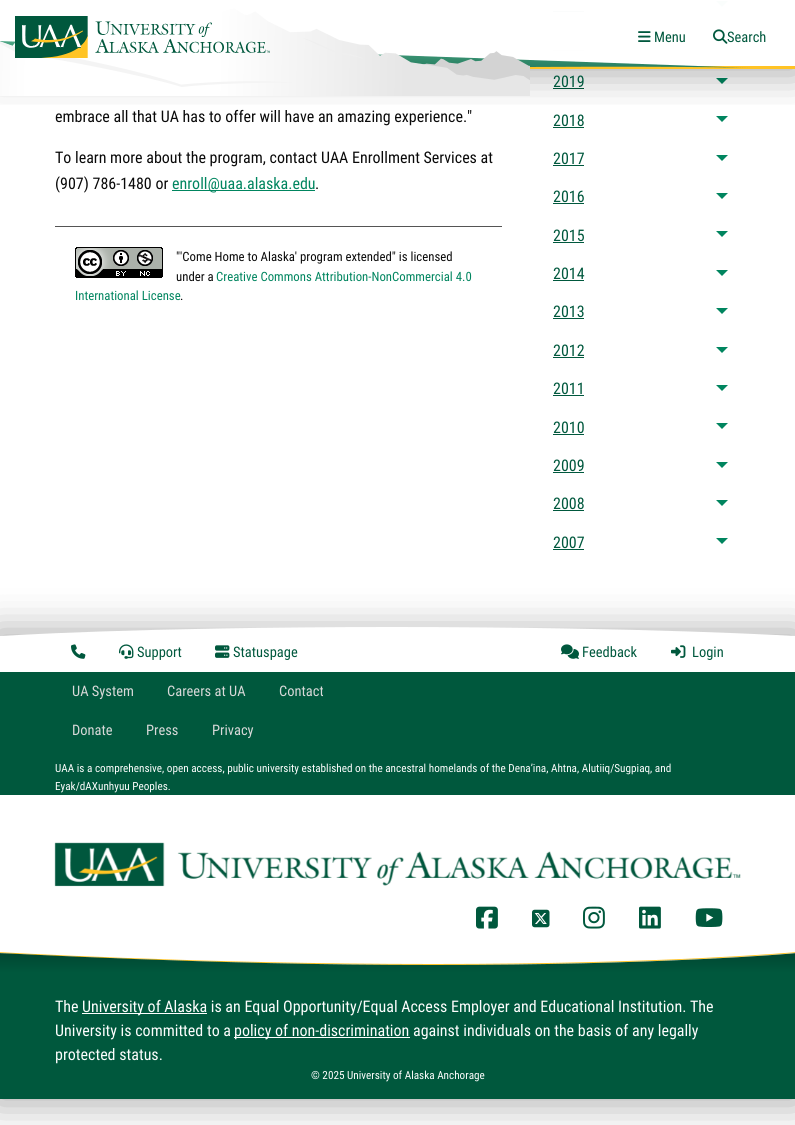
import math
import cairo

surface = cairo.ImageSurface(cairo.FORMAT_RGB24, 795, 1125)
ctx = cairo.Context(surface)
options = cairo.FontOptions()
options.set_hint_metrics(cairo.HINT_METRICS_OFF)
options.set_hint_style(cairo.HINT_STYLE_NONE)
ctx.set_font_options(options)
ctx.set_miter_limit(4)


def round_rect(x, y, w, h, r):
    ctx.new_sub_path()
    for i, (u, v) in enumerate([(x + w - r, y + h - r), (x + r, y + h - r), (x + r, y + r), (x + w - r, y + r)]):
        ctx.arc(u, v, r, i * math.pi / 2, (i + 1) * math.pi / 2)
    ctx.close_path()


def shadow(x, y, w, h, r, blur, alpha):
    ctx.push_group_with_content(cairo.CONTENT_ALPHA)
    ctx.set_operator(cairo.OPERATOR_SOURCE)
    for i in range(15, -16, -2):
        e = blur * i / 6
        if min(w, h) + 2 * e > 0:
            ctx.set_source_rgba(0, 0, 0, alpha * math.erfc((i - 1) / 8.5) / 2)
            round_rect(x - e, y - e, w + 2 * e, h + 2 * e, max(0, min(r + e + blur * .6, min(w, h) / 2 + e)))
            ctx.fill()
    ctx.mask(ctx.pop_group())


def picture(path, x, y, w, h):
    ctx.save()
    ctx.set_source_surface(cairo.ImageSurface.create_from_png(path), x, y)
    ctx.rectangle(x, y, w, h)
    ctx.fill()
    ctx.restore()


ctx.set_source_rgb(1, 1, 1)
ctx.paint()
ctx.set_source_rgb(0, 0.522, 0.373)
ctx.new_path()
ctx.move_to(716, 1)
ctx.line_to(728, 1)
ctx.line_to(722, 7)
ctx.close_path()
ctx.fill()
ctx.set_source_rgb(0, 0.345, 0.239)
ctx.rectangle(553, 11, 31, 1)
ctx.fill()
ctx.set_source_rgb(0, 0.522, 0.373)
ctx.new_path()
ctx.move_to(716, 40)
ctx.line_to(728, 40)
ctx.line_to(722, 46)
ctx.close_path()
ctx.fill()
ctx.set_source_rgb(0, 0.345, 0.239)
ctx.rectangle(553, 50, 31, 1)
ctx.fill()
ctx.set_source_rgba(1, 1, 1, 0.9)
ctx.rectangle(553, 1, 175, 50)
ctx.fill()
ctx.set_source_rgb(0, 0.345, 0.239)
ctx.rectangle(553, 88, 31, 1)
ctx.fill()
ctx.set_source_rgb(0, 0.522, 0.373)
ctx.new_path()
ctx.move_to(716, 78)
ctx.line_to(728, 78)
ctx.line_to(722, 84)
ctx.close_path()
ctx.fill()
ctx.set_source_rgb(0, 0.345, 0.239)
ctx.rectangle(553, 127, 31, 1)
ctx.fill()
ctx.set_source_rgb(0, 0.522, 0.373)
ctx.new_path()
ctx.move_to(716, 116)
ctx.line_to(728, 116)
ctx.line_to(722, 122)
ctx.close_path()
ctx.fill()
ctx.save()
ctx.rectangle(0, 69, 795, 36)
ctx.clip()
ctx.set_source_rgb(0, 0, 0)
shadow(-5, -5, 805, 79, 0, 20, 0.33)
ctx.restore()
gradient = cairo.LinearGradient(398, 0, 398, 66)
gradient.add_color_stop_rgba(0, 1, 1, 1, 0.8)
gradient.add_color_stop_rgba(1, 1, 1, 1, 1)
ctx.set_source(gradient)
ctx.rectangle(553, 1, 175, 50)
ctx.fill()
ctx.set_source_rgb(1, 0.765, 0.145)
ctx.rectangle(530, 66, 265, 3)
ctx.fill()
picture("img3.png", 638, 31, 13, 11)
ctx.select_font_face("Roboto Condensed")
ctx.set_font_size(14.5)
ctx.set_source_rgb(0, 0.345, 0.239)
ctx.move_to(654, 42)
ctx.show_text("Menu")
picture("img4.png", 713, 29, 15, 15)
ctx.move_to(727, 42)
ctx.show_text("Search")
ctx.set_font_size(16)
ctx.move_to(553, 87)
ctx.show_text("2019")
gradient = cairo.LinearGradient(376, 41, 376, 95)
gradient.add_color_stop_rgba(0, 0.306, 0.651, 0.522, 1)
gradient.add_color_stop_rgba(1, 0, 0.345, 0.239, 1)
ctx.set_source(gradient)
ctx.new_path()
ctx.move_to(-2, 41)
ctx.line_to(753, 68)
ctx.curve_to(708, 66, 158, 62, -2, 95)
ctx.close_path()
ctx.fill()
picture("img1.png", 0, 8, 530, 88)
picture("img2.png", 15, 16, 255, 42)
ctx.set_source_rgb(0.039, 0.039, 0.039)
ctx.move_to(55, 122)
ctx.show_text("embrace all that UA has to offer will have an amazing experience.\"")
ctx.move_to(55, 163)
ctx.show_text("To learn more about the program, contact UAA Enrollment Services at")
ctx.move_to(55, 189)
ctx.show_text("(907) 786-1480 or")
ctx.set_source_rgb(0, 0.522, 0.373)
ctx.rectangle(172, 190, 143, 1)
ctx.fill()
ctx.move_to(172, 189)
ctx.show_text("enroll@uaa.alaska.edu")
ctx.set_source_rgb(0.039, 0.039, 0.039)
ctx.move_to(315, 189)
ctx.show_text(".")
ctx.set_source_rgb(0.333, 0.333, 0.333)
ctx.rectangle(55, 226, 447, 1)
ctx.fill()
picture("img5.png", 75, 247, 88, 31)
ctx.set_font_size(12.8)
ctx.set_source_rgb(0.039, 0.039, 0.039)
ctx.move_to(176, 261)
ctx.show_text("\"'Come Home to Alaska' program extended\" is licensed")
ctx.move_to(176, 281)
ctx.show_text("under a")
ctx.set_source_rgb(0, 0.522, 0.373)
ctx.move_to(216, 281)
ctx.show_text("Creative Commons Attribution-NonCommercial 4.0")
ctx.move_to(75, 300)
ctx.show_text("International License")
ctx.set_source_rgb(0.039, 0.039, 0.039)
ctx.move_to(180, 300)
ctx.show_text(".")
ctx.set_font_size(16)
ctx.set_source_rgb(0, 0.345, 0.239)
ctx.move_to(553, 126)
ctx.show_text("2018")
ctx.move_to(553, 164)
ctx.show_text("2017")
ctx.rectangle(553, 165, 31, 1)
ctx.fill()
ctx.set_source_rgb(0, 0.522, 0.373)
ctx.new_path()
ctx.move_to(716, 155)
ctx.line_to(728, 155)
ctx.line_to(722, 161)
ctx.close_path()
ctx.fill()
ctx.set_source_rgb(0, 0.345, 0.239)
ctx.move_to(553, 202)
ctx.show_text("2016")
ctx.rectangle(553, 203, 31, 1)
ctx.fill()
ctx.set_source_rgb(0, 0.522, 0.373)
ctx.new_path()
ctx.move_to(716, 193)
ctx.line_to(728, 193)
ctx.line_to(722, 199)
ctx.close_path()
ctx.fill()
ctx.set_source_rgb(0, 0.345, 0.239)
ctx.move_to(553, 241)
ctx.show_text("2015")
ctx.rectangle(553, 242, 31, 1)
ctx.fill()
ctx.set_source_rgb(0, 0.522, 0.373)
ctx.new_path()
ctx.move_to(716, 231)
ctx.line_to(728, 231)
ctx.line_to(722, 237)
ctx.close_path()
ctx.fill()
ctx.set_source_rgb(0, 0.345, 0.239)
ctx.move_to(553, 279)
ctx.show_text("2014")
ctx.rectangle(553, 280, 31, 1)
ctx.fill()
ctx.set_source_rgb(0, 0.522, 0.373)
ctx.new_path()
ctx.move_to(716, 270)
ctx.line_to(728, 270)
ctx.line_to(722, 276)
ctx.close_path()
ctx.fill()
ctx.set_source_rgb(0, 0.345, 0.239)
ctx.move_to(553, 317)
ctx.show_text("2013")
ctx.rectangle(553, 318, 31, 1)
ctx.fill()
ctx.set_source_rgb(0, 0.522, 0.373)
ctx.new_path()
ctx.move_to(716, 308)
ctx.line_to(728, 308)
ctx.line_to(722, 314)
ctx.close_path()
ctx.fill()
ctx.set_source_rgb(0, 0.345, 0.239)
ctx.move_to(553, 356)
ctx.show_text("2012")
ctx.rectangle(553, 357, 31, 1)
ctx.fill()
ctx.set_source_rgb(0, 0.522, 0.373)
ctx.new_path()
ctx.move_to(716, 347)
ctx.line_to(728, 347)
ctx.line_to(722, 353)
ctx.close_path()
ctx.fill()
ctx.set_source_rgb(0, 0.345, 0.239)
ctx.move_to(553, 394)
ctx.show_text("2011")
ctx.rectangle(553, 395, 31, 1)
ctx.fill()
ctx.set_source_rgb(0, 0.522, 0.373)
ctx.new_path()
ctx.move_to(716, 385)
ctx.line_to(728, 385)
ctx.line_to(722, 391)
ctx.close_path()
ctx.fill()
ctx.set_source_rgb(0, 0.345, 0.239)
ctx.move_to(553, 433)
ctx.show_text("2010")
ctx.rectangle(553, 434, 31, 1)
ctx.fill()
ctx.set_source_rgb(0, 0.522, 0.373)
ctx.new_path()
ctx.move_to(716, 423)
ctx.line_to(728, 423)
ctx.line_to(722, 429)
ctx.close_path()
ctx.fill()
ctx.set_source_rgb(0, 0.345, 0.239)
ctx.move_to(553, 471)
ctx.show_text("2009")
ctx.rectangle(553, 472, 31, 1)
ctx.fill()
ctx.set_source_rgb(0, 0.522, 0.373)
ctx.new_path()
ctx.move_to(716, 462)
ctx.line_to(728, 462)
ctx.line_to(722, 468)
ctx.close_path()
ctx.fill()
ctx.set_source_rgb(0, 0.345, 0.239)
ctx.move_to(553, 509)
ctx.show_text("2008")
ctx.rectangle(553, 510, 31, 1)
ctx.fill()
ctx.set_source_rgb(0, 0.522, 0.373)
ctx.new_path()
ctx.move_to(716, 500)
ctx.line_to(728, 500)
ctx.line_to(722, 506)
ctx.close_path()
ctx.fill()
ctx.set_source_rgb(0, 0.345, 0.239)
ctx.move_to(553, 548)
ctx.show_text("2007")
ctx.rectangle(553, 549, 31, 1)
ctx.fill()
ctx.set_source_rgb(0, 0.522, 0.373)
ctx.new_path()
ctx.move_to(716, 538)
ctx.line_to(728, 538)
ctx.line_to(722, 544)
ctx.close_path()
ctx.fill()
ctx.save()
ctx.set_fill_rule(cairo.FILL_RULE_EVEN_ODD)
ctx.new_path()
ctx.move_to(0, 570)
ctx.line_to(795, 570)
ctx.line_to(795, 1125)
ctx.line_to(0, 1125)
ctx.close_path()
ctx.move_to(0, 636)
ctx.line_to(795, 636)
ctx.line_to(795, 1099)
ctx.line_to(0, 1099)
ctx.close_path()
ctx.clip()
ctx.set_source_rgb(0, 0, 0)
shadow(-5, 631, 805, 473, 0, 20, 0.33)
ctx.restore()
ctx.set_source_rgb(1, 1, 1)
ctx.new_path()
ctx.move_to(0, 637)
ctx.line_to(0, 636)
ctx.curve_to(0, 636, 137, 627, 392, 627)
ctx.curve_to(647, 627, 795, 636, 795, 636)
ctx.close_path()
ctx.fill()
picture("img6.png", 71, 644, 15, 15)
picture("img7.png", 119, 644, 15, 15)
ctx.set_font_size(14.5)
ctx.set_source_rgb(0, 0.345, 0.239)
ctx.move_to(137, 657)
ctx.show_text("Support")
picture("img8.png", 215, 645, 15, 13)
ctx.move_to(233, 657)
ctx.show_text("Statuspage")
picture("img9.png", 561, 644, 18, 15)
ctx.move_to(582, 657)
ctx.show_text("Feedback")
picture("img10.png", 671, 645, 15, 13)
ctx.move_to(692, 657)
ctx.show_text("Login")
ctx.rectangle(0, 672, 795, 123)
ctx.fill()
ctx.set_source_rgb(0.851, 0.851, 0.851)
ctx.move_to(72, 696)
ctx.show_text("UA System")
ctx.move_to(167, 696)
ctx.show_text("Careers at UA")
ctx.move_to(279, 696)
ctx.show_text("Contact")
ctx.move_to(72, 735)
ctx.show_text("Donate")
ctx.move_to(146, 735)
ctx.show_text("Press")
ctx.move_to(212, 735)
ctx.show_text("Privacy")
ctx.set_font_size(11.2)
ctx.set_source_rgb(0.996, 0.996, 0.996)
ctx.move_to(55, 772)
ctx.show_text("UAA is a comprehensive, open access, public university established on the ancestral homelands of the Dena’ina, Ahtna, Alutiiq/Sugpiaq, and")
ctx.move_to(55, 790)
ctx.show_text("Eyak/dAXunhyuu Peoples.")
picture("img11.png", 54, 842, 687, 45)
picture("img12.png", 476, 906, 22, 23)
picture("img13.png", 532, 909, 18, 19)
picture("img14.png", 583, 906, 22, 23)
picture("img15.png", 639, 906, 22, 23)
picture("img16.png", 695, 908, 28, 19)
ctx.set_source_rgb(0, 0.345, 0.239)
ctx.rectangle(0, 984, 795, 115)
ctx.fill()
ctx.save()
ctx.rectangle(0, 949, 795, 35)
ctx.clip()
ctx.set_source_rgb(1, 0.765, 0.145)
ctx.new_path()
ctx.move_to(-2, 985)
ctx.line_to(-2, 953)
ctx.curve_to(12, 954, 210, 965, 433, 965)
ctx.curve_to(655, 965, 785, 954, 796, 953)
ctx.line_to(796, 985)
ctx.line_to(-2, 985)
ctx.move_to(-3, 986)
ctx.line_to(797, 986)
ctx.line_to(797, 952)
ctx.curve_to(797, 952, 667, 964, 433, 964)
ctx.curve_to(200, 964, -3, 952, -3, 952)
ctx.close_path()
ctx.fill()
gradient = cairo.LinearGradient(397, 953, 397, 986)
gradient.add_color_stop_rgba(0, 0, 0.275, 0.192, 1)
gradient.add_color_stop_rgba(0.6, 0, 0.345, 0.239, 1)
ctx.set_source(gradient)
ctx.new_path()
ctx.move_to(-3, 953)
ctx.curve_to(8, 953, 207, 965, 433, 965)
ctx.curve_to(658, 965, 789, 954, 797, 953)
ctx.line_to(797, 985)
ctx.line_to(-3, 986)
ctx.close_path()
ctx.fill()
ctx.restore()
ctx.set_font_size(16)
ctx.set_source_rgb(0.996, 0.996, 0.996)
ctx.move_to(55, 1012)
ctx.show_text("The")
ctx.rectangle(82, 1013, 125, 1)
ctx.fill()
ctx.move_to(82, 1012)
ctx.show_text("University of Alaska is an Equal Opportunity/Equal Access Employer and Educational Institution. The")
ctx.move_to(55, 1036)
ctx.show_text("University is committed to a")
ctx.rectangle(234, 1037, 176, 1)
ctx.fill()
ctx.move_to(234, 1036)
ctx.show_text("policy of non-discrimination against individuals on the basis of any legally")
ctx.move_to(55, 1060)
ctx.show_text("protected status.")
ctx.set_font_size(11.2)
ctx.move_to(311, 1079)
ctx.show_text("© 2025 University of Alaska Anchorage")
surface.write_to_png("page.png")
